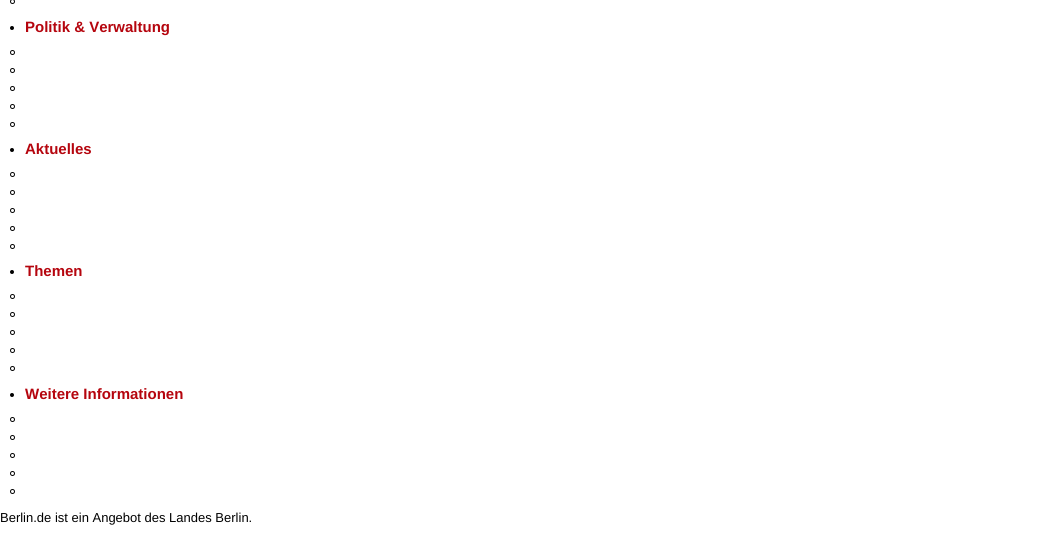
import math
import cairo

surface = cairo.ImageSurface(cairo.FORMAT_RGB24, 1051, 537)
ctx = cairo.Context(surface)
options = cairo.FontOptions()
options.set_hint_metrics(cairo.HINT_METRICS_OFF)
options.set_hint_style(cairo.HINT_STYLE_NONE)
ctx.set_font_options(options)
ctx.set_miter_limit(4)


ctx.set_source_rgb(1, 1, 1)
ctx.paint()
ctx.arc(12.5, 1.5, 2, 0, 2 * math.pi)
ctx.set_source_rgb(0, 0, 0)
ctx.set_line_width(1)
ctx.stroke()
ctx.arc(12, 28, 2, 0, 2 * math.pi)
ctx.fill()
ctx.select_font_face("Liberation Sans", cairo.FONT_SLANT_NORMAL, cairo.FONT_WEIGHT_BOLD)
ctx.set_font_size(15)
ctx.set_source_rgb(0.71, 0.02, 0.055)
ctx.move_to(25, 32)
ctx.show_text("Politik & Verwaltung")
ctx.new_path()
ctx.arc(12.5, 52.5, 2, 0, 2 * math.pi)
ctx.set_source_rgb(0, 0, 0)
ctx.stroke()
ctx.arc(12.5, 70.5, 2, 0, 2 * math.pi)
ctx.stroke()
ctx.arc(12.5, 88.5, 2, 0, 2 * math.pi)
ctx.stroke()
ctx.arc(12.5, 106.5, 2, 0, 2 * math.pi)
ctx.stroke()
ctx.arc(12.5, 124.5, 2, 0, 2 * math.pi)
ctx.stroke()
ctx.arc(12, 150, 2, 0, 2 * math.pi)
ctx.fill()
ctx.set_source_rgb(0.71, 0.02, 0.055)
ctx.move_to(25, 154)
ctx.show_text("Aktuelles")
ctx.new_path()
ctx.arc(12.5, 174.5, 2, 0, 2 * math.pi)
ctx.set_source_rgb(0, 0, 0)
ctx.stroke()
ctx.arc(12.5, 192.5, 2, 0, 2 * math.pi)
ctx.stroke()
ctx.arc(12.5, 210.5, 2, 0, 2 * math.pi)
ctx.stroke()
ctx.arc(12.5, 228.5, 2, 0, 2 * math.pi)
ctx.stroke()
ctx.arc(12.5, 246.5, 2, 0, 2 * math.pi)
ctx.stroke()
ctx.arc(12, 272, 2, 0, 2 * math.pi)
ctx.fill()
ctx.set_source_rgb(0.71, 0.02, 0.055)
ctx.move_to(25, 276)
ctx.show_text("Themen")
ctx.new_path()
ctx.arc(12.5, 296.5, 2, 0, 2 * math.pi)
ctx.set_source_rgb(0, 0, 0)
ctx.stroke()
ctx.arc(12.5, 314.5, 2, 0, 2 * math.pi)
ctx.stroke()
ctx.arc(12.5, 332.5, 2, 0, 2 * math.pi)
ctx.stroke()
ctx.arc(12.5, 350.5, 2, 0, 2 * math.pi)
ctx.stroke()
ctx.arc(12.5, 368.5, 2, 0, 2 * math.pi)
ctx.stroke()
ctx.arc(12, 395, 2, 0, 2 * math.pi)
ctx.fill()
ctx.set_source_rgb(0.71, 0.02, 0.055)
ctx.move_to(25, 399)
ctx.show_text("Weitere Informationen")
ctx.new_path()
ctx.arc(12.5, 419.5, 2, 0, 2 * math.pi)
ctx.set_source_rgb(0, 0, 0)
ctx.stroke()
ctx.arc(12.5, 437.5, 2, 0, 2 * math.pi)
ctx.stroke()
ctx.arc(12.5, 455.5, 2, 0, 2 * math.pi)
ctx.stroke()
ctx.arc(12.5, 473.5, 2, 0, 2 * math.pi)
ctx.stroke()
ctx.arc(12.5, 491.5, 2, 0, 2 * math.pi)
ctx.stroke()
ctx.select_font_face("Liberation Sans")
ctx.set_font_size(13)
ctx.move_to(0, 522)
ctx.show_text("Berlin.de ist ein Angebot des Landes Berlin.")
surface.write_to_png("page.png")
